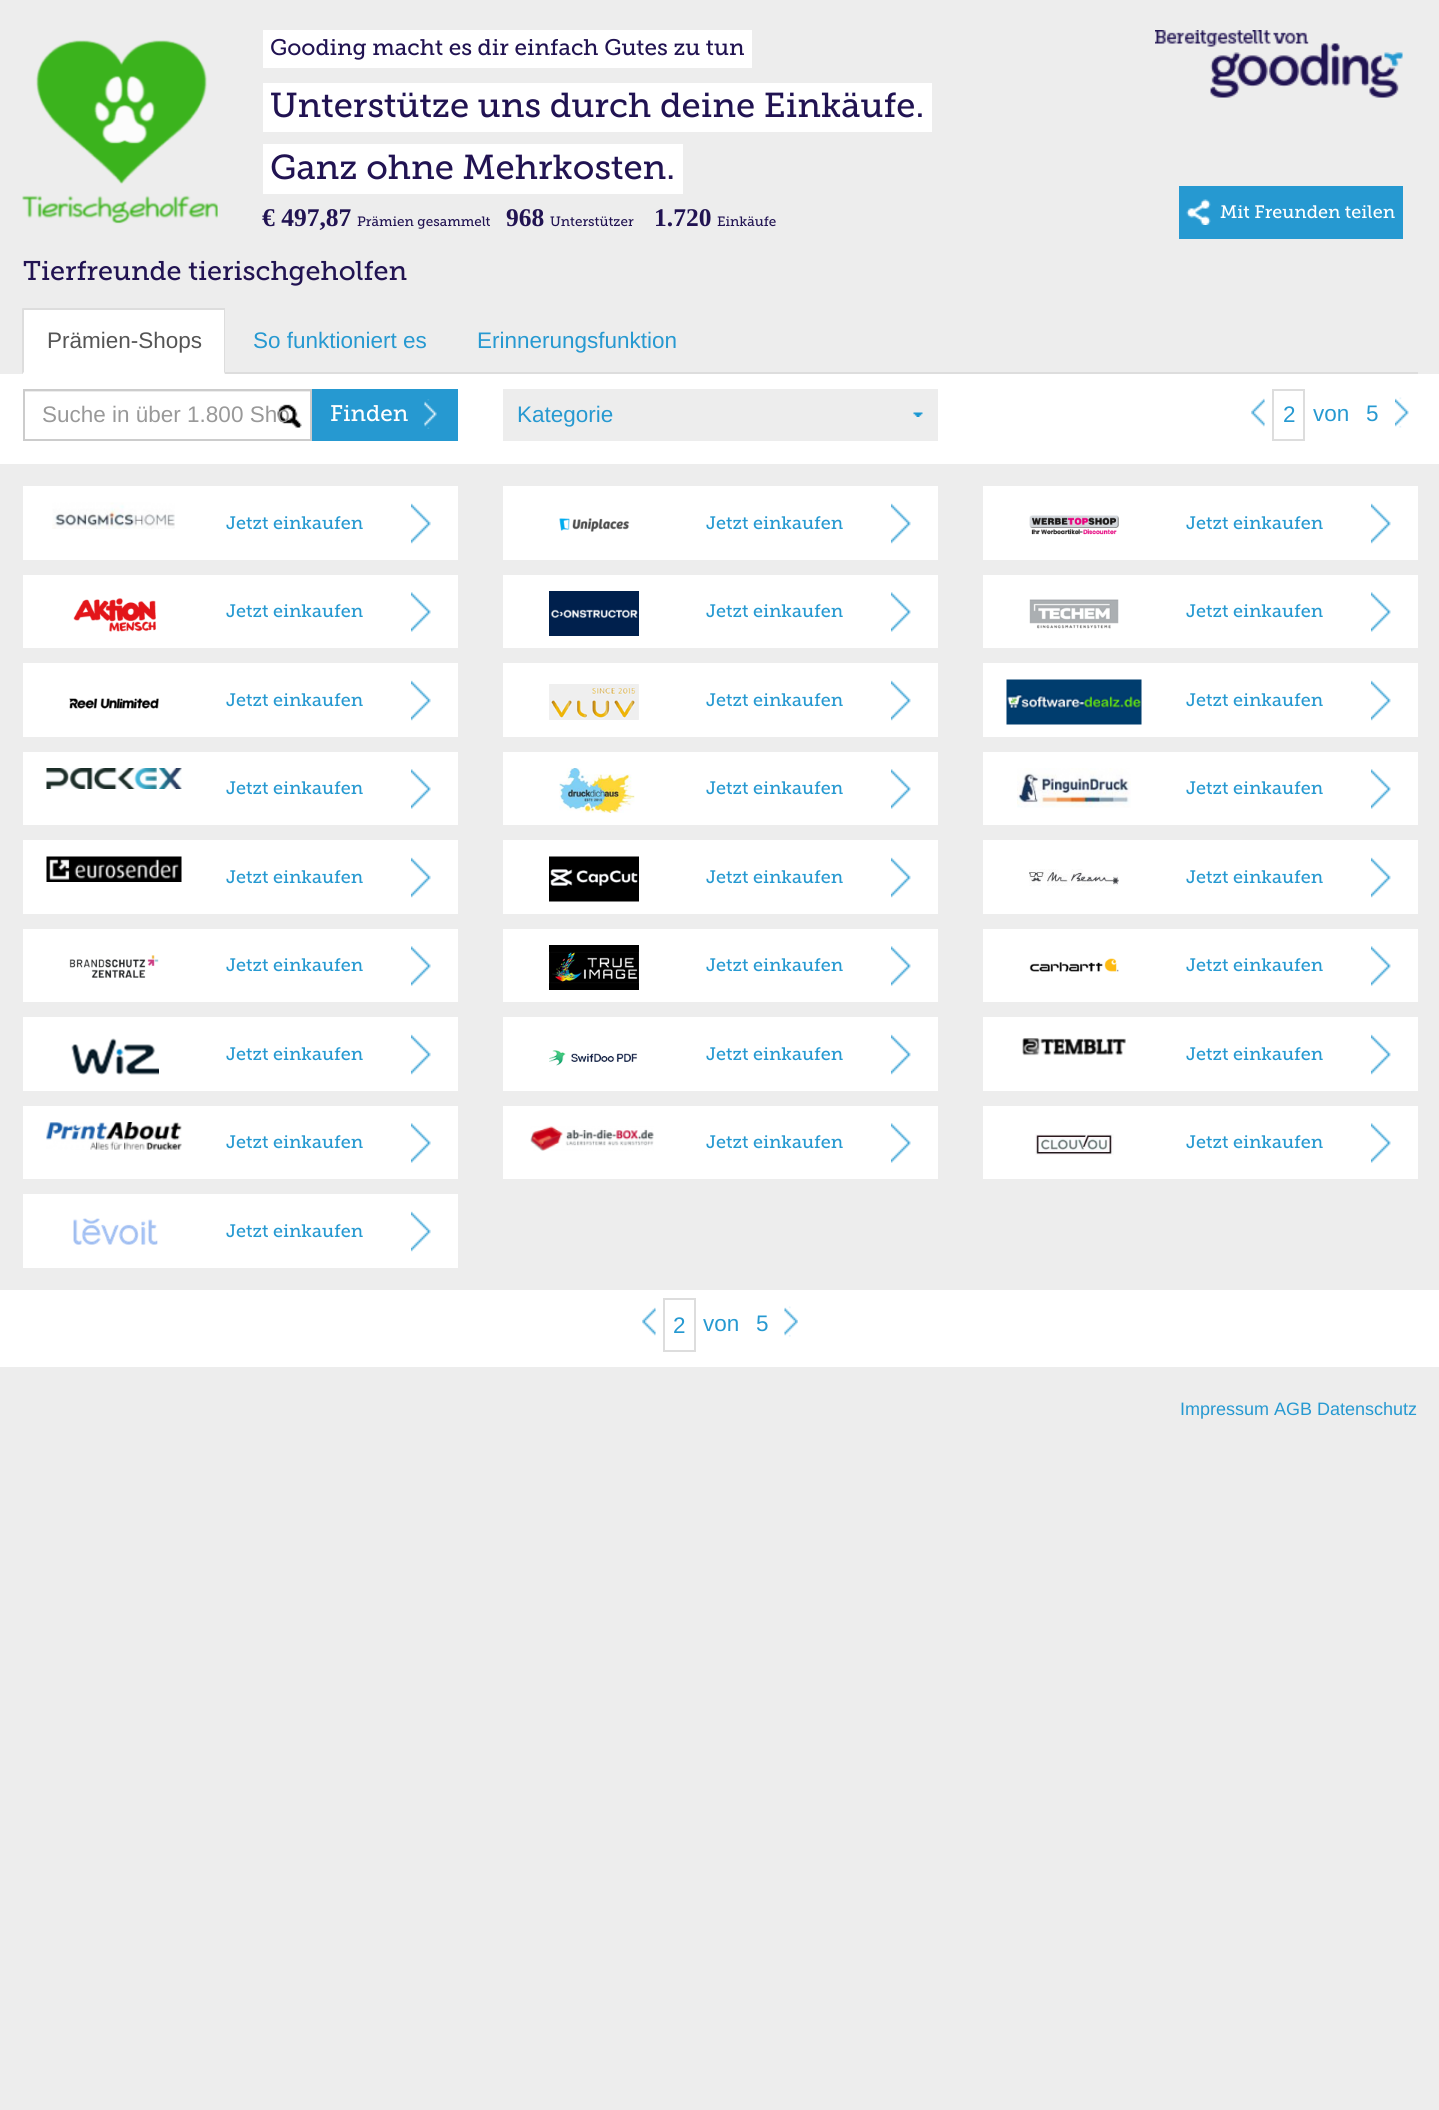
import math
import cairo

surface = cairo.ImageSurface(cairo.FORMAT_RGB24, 1439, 2110)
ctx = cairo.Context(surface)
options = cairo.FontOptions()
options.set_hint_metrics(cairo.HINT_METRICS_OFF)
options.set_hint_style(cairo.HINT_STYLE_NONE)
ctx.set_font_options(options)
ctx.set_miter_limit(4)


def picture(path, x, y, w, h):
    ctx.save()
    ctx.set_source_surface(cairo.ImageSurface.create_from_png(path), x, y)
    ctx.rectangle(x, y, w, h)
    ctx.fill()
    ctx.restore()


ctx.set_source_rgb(0.929, 0.929, 0.929)
ctx.paint()
picture("img1.png", 22, 40, 196, 184)
ctx.set_source_rgb(1, 1, 1)
ctx.rectangle(263, 30, 489, 38)
ctx.fill()
ctx.select_font_face("Museo Slab")
ctx.set_font_size(22.5)
ctx.set_source_rgb(0.129, 0.078, 0.322)
ctx.move_to(270, 55)
ctx.show_text("Gooding macht es dir einfach Gutes zu tun")
ctx.set_source_rgb(1, 1, 1)
ctx.rectangle(263, 83, 669, 49)
ctx.fill()
ctx.set_font_size(34.5)
ctx.set_source_rgb(0.129, 0.078, 0.322)
ctx.move_to(270, 117)
ctx.show_text("Unterstütze uns durch deine Einkäufe.")
ctx.set_source_rgb(1, 1, 1)
ctx.rectangle(263, 144, 420, 50)
ctx.fill()
ctx.set_source_rgb(0.129, 0.078, 0.322)
ctx.move_to(270, 179)
ctx.show_text("Ganz ohne Mehrkosten.")
picture("img2.png", 1155, 30, 248, 68)
ctx.select_font_face("Liberation Serif", cairo.FONT_SLANT_NORMAL, cairo.FONT_WEIGHT_BOLD)
ctx.set_font_size(25.5)
ctx.move_to(262, 226)
ctx.show_text("€ 497,87")
ctx.select_font_face("Museo Slab")
ctx.set_font_size(13.5)
ctx.move_to(357, 226)
ctx.show_text("Prämien gesammelt")
ctx.select_font_face("Liberation Serif", cairo.FONT_SLANT_NORMAL, cairo.FONT_WEIGHT_BOLD)
ctx.set_font_size(25.5)
ctx.move_to(506, 226)
ctx.show_text("968")
ctx.select_font_face("Museo Slab")
ctx.set_font_size(13.5)
ctx.move_to(550, 226)
ctx.show_text("Unterstützer")
ctx.select_font_face("Liberation Serif", cairo.FONT_SLANT_NORMAL, cairo.FONT_WEIGHT_BOLD)
ctx.set_font_size(25.5)
ctx.move_to(654, 226)
ctx.show_text("1.720")
ctx.select_font_face("Museo Slab")
ctx.set_font_size(13.5)
ctx.move_to(717, 226)
ctx.show_text("Einkäufe")
ctx.set_source_rgb(0.149, 0.6, 0.82)
ctx.rectangle(1179, 186, 224, 53)
ctx.fill()
picture("img3.png", 1186, 199, 25, 26)
ctx.set_font_size(18)
ctx.set_source_rgb(1, 1, 1)
ctx.move_to(1220, 218)
ctx.show_text("Mit Freunden teilen")
ctx.set_font_size(27)
ctx.set_source_rgb(0.129, 0.078, 0.322)
ctx.move_to(23, 280)
ctx.show_text("Tierfreunde tierischgeholfen")
ctx.set_source_rgb(0.867, 0.867, 0.867)
ctx.rectangle(225, 372, 1193, 2)
ctx.fill()
ctx.set_source_rgb(1, 1, 1)
ctx.rectangle(23, 310, 202, 64)
ctx.fill()
ctx.set_source_rgb(0.867, 0.867, 0.867)
ctx.rectangle(23, 308, 202, 2)
ctx.fill()
ctx.new_path()
ctx.move_to(225, 308)
ctx.line_to(225, 374)
ctx.line_to(224, 372)
ctx.line_to(224, 309)
ctx.close_path()
ctx.fill()
ctx.new_path()
ctx.move_to(22, 374)
ctx.line_to(22, 308)
ctx.line_to(24, 309)
ctx.line_to(24, 372)
ctx.close_path()
ctx.fill()
ctx.select_font_face("Liberation Sans")
ctx.set_font_size(22.5)
ctx.set_source_rgb(0.333, 0.333, 0.333)
ctx.move_to(47, 348)
ctx.show_text("Prämien-Shops")
ctx.set_source_rgb(0.149, 0.6, 0.82)
ctx.move_to(253, 348)
ctx.show_text("So funktioniert es")
ctx.move_to(477, 348)
ctx.show_text("Erinnerungsfunktion")
ctx.set_source_rgb(1, 1, 1)
ctx.rectangle(0, 374, 1439, 90)
ctx.fill()
picture("img4.png", 277, 404, 25, 24)
ctx.set_source_rgb(0.925, 0.925, 0.925)
ctx.rectangle(24, 391, 287, 1)
ctx.fill()
ctx.rectangle(24, 390, 287, 50)
ctx.set_source_rgb(0.8, 0.8, 0.8)
ctx.stroke()
ctx.set_source_rgb(0.6, 0.6, 0.6)
ctx.move_to(42, 422)
ctx.show_text("Suche in über 1.800 Sho")
ctx.set_source_rgb(0.149, 0.6, 0.82)
ctx.rectangle(312, 389, 146, 52)
ctx.fill()
ctx.select_font_face("Museo Slab")
ctx.set_source_rgb(1, 1, 1)
ctx.move_to(330, 421)
ctx.show_text("Finden")
picture("img5.png", 424, 399, 13, 30)
ctx.set_source_rgb(0.929, 0.929, 0.929)
ctx.rectangle(503, 389, 435, 52)
ctx.fill()
picture("img6.png", 913, 412, 10, 5)
ctx.select_font_face("Liberation Sans")
ctx.set_source_rgb(0.149, 0.6, 0.82)
ctx.move_to(517, 422)
ctx.show_text("Kategorie")
picture("img7.png", 1251, 398, 14, 29)
ctx.rectangle(1273, 390, 31, 50)
ctx.set_source_rgb(0.867, 0.867, 0.867)
ctx.stroke()
ctx.set_source_rgb(0.149, 0.6, 0.82)
ctx.move_to(1283, 422)
ctx.show_text("2")
ctx.move_to(1313, 421)
ctx.show_text("von")
ctx.move_to(1366, 421)
ctx.show_text("5")
picture("img8.png", 1395, 397, 14, 31)
ctx.set_source_rgb(1, 1, 1)
ctx.rectangle(23, 486, 435, 74)
ctx.fill()
picture("img9.png", 52, 502, 123, 27)
ctx.select_font_face("Museo Slab")
ctx.set_font_size(18)
ctx.set_source_rgb(0.149, 0.6, 0.82)
ctx.move_to(226, 529)
ctx.show_text("Jetzt einkaufen")
picture("img10.png", 411, 503, 20, 41)
ctx.set_source_rgb(1, 1, 1)
ctx.rectangle(503, 486, 435, 74)
ctx.fill()
picture("img11.png", 559, 518, 71, 14)
ctx.set_source_rgb(0.149, 0.6, 0.82)
ctx.move_to(706, 529)
ctx.show_text("Jetzt einkaufen")
picture("img12.png", 891, 503, 20, 41)
ctx.set_source_rgb(1, 1, 1)
ctx.rectangle(983, 486, 435, 74)
ctx.fill()
picture("img13.png", 1029, 515, 90, 20)
ctx.set_source_rgb(0.149, 0.6, 0.82)
ctx.move_to(1186, 529)
ctx.show_text("Jetzt einkaufen")
picture("img12.png", 1371, 503, 20, 41)
ctx.set_source_rgb(1, 1, 1)
ctx.rectangle(23, 575, 435, 73)
ctx.fill()
picture("img14.png", 73, 598, 83, 34)
ctx.set_source_rgb(0.149, 0.6, 0.82)
ctx.move_to(226, 617)
ctx.show_text("Jetzt einkaufen")
picture("img15.png", 411, 592, 20, 40)
ctx.set_source_rgb(1, 1, 1)
ctx.rectangle(503, 575, 435, 73)
ctx.fill()
picture("img16.png", 549, 591, 90, 45)
ctx.set_source_rgb(0.149, 0.6, 0.82)
ctx.move_to(706, 617)
ctx.show_text("Jetzt einkaufen")
picture("img17.png", 891, 592, 20, 40)
ctx.set_source_rgb(1, 1, 1)
ctx.rectangle(983, 575, 435, 73)
ctx.fill()
picture("img18.png", 1029, 599, 90, 30)
ctx.set_source_rgb(0.149, 0.6, 0.82)
ctx.move_to(1186, 617)
ctx.show_text("Jetzt einkaufen")
picture("img17.png", 1371, 592, 20, 40)
ctx.set_source_rgb(1, 1, 1)
ctx.rectangle(23, 663, 435, 74)
ctx.fill()
picture("img19.png", 69, 698, 90, 11)
ctx.set_source_rgb(0.149, 0.6, 0.82)
ctx.move_to(226, 706)
ctx.show_text("Jetzt einkaufen")
picture("img10.png", 411, 680, 20, 41)
ctx.set_source_rgb(1, 1, 1)
ctx.rectangle(503, 663, 435, 74)
ctx.fill()
picture("img20.png", 549, 684, 90, 36)
ctx.set_source_rgb(0.149, 0.6, 0.82)
ctx.move_to(706, 706)
ctx.show_text("Jetzt einkaufen")
picture("img12.png", 891, 680, 20, 41)
ctx.set_source_rgb(1, 1, 1)
ctx.rectangle(983, 663, 435, 74)
ctx.fill()
picture("img21.png", 1006, 679, 136, 46)
ctx.set_source_rgb(0.149, 0.6, 0.82)
ctx.move_to(1186, 706)
ctx.show_text("Jetzt einkaufen")
picture("img12.png", 1371, 680, 20, 41)
ctx.set_source_rgb(1, 1, 1)
ctx.rectangle(23, 752, 435, 73)
ctx.fill()
picture("img22.png", 46, 768, 136, 21)
ctx.set_source_rgb(0.149, 0.6, 0.82)
ctx.move_to(226, 794)
ctx.show_text("Jetzt einkaufen")
picture("img15.png", 411, 769, 20, 40)
ctx.set_source_rgb(1, 1, 1)
ctx.rectangle(503, 752, 435, 73)
ctx.fill()
picture("img23.png", 559, 768, 76, 45)
ctx.set_source_rgb(0.149, 0.6, 0.82)
ctx.move_to(706, 794)
ctx.show_text("Jetzt einkaufen")
picture("img17.png", 891, 769, 20, 40)
ctx.set_source_rgb(1, 1, 1)
ctx.rectangle(983, 752, 435, 73)
ctx.fill()
picture("img24.png", 1017, 768, 114, 40)
ctx.set_source_rgb(0.149, 0.6, 0.82)
ctx.move_to(1186, 794)
ctx.show_text("Jetzt einkaufen")
picture("img17.png", 1371, 769, 20, 40)
ctx.set_source_rgb(1, 1, 1)
ctx.rectangle(23, 840, 435, 74)
ctx.fill()
picture("img25.png", 46, 856, 136, 26)
ctx.set_source_rgb(0.149, 0.6, 0.82)
ctx.move_to(226, 883)
ctx.show_text("Jetzt einkaufen")
picture("img10.png", 411, 857, 20, 41)
ctx.set_source_rgb(1, 1, 1)
ctx.rectangle(503, 840, 435, 74)
ctx.fill()
picture("img26.png", 549, 856, 90, 46)
ctx.set_source_rgb(0.149, 0.6, 0.82)
ctx.move_to(706, 883)
ctx.show_text("Jetzt einkaufen")
picture("img12.png", 891, 857, 20, 41)
ctx.set_source_rgb(1, 1, 1)
ctx.rectangle(983, 840, 435, 74)
ctx.fill()
picture("img27.png", 1029, 869, 90, 17)
ctx.set_source_rgb(0.149, 0.6, 0.82)
ctx.move_to(1186, 883)
ctx.show_text("Jetzt einkaufen")
picture("img12.png", 1371, 857, 20, 41)
ctx.set_source_rgb(1, 1, 1)
ctx.rectangle(23, 929, 435, 73)
ctx.fill()
picture("img28.png", 69, 955, 90, 23)
ctx.set_source_rgb(0.149, 0.6, 0.82)
ctx.move_to(226, 971)
ctx.show_text("Jetzt einkaufen")
picture("img15.png", 411, 946, 20, 40)
ctx.set_source_rgb(1, 1, 1)
ctx.rectangle(503, 929, 435, 73)
ctx.fill()
picture("img29.png", 549, 945, 90, 45)
ctx.set_source_rgb(0.149, 0.6, 0.82)
ctx.move_to(706, 971)
ctx.show_text("Jetzt einkaufen")
picture("img17.png", 891, 946, 20, 40)
ctx.set_source_rgb(1, 1, 1)
ctx.rectangle(983, 929, 435, 73)
ctx.fill()
picture("img30.png", 1029, 958, 90, 14)
ctx.set_source_rgb(0.149, 0.6, 0.82)
ctx.move_to(1186, 971)
ctx.show_text("Jetzt einkaufen")
picture("img17.png", 1371, 946, 20, 40)
ctx.set_source_rgb(1, 1, 1)
ctx.rectangle(23, 1017, 435, 74)
ctx.fill()
picture("img31.png", 71, 1038, 88, 37)
ctx.set_source_rgb(0.149, 0.6, 0.82)
ctx.move_to(226, 1060)
ctx.show_text("Jetzt einkaufen")
picture("img10.png", 411, 1034, 20, 41)
ctx.set_source_rgb(1, 1, 1)
ctx.rectangle(503, 1017, 435, 74)
ctx.fill()
picture("img32.png", 549, 1050, 89, 16)
ctx.set_source_rgb(0.149, 0.6, 0.82)
ctx.move_to(706, 1060)
ctx.show_text("Jetzt einkaufen")
picture("img12.png", 891, 1034, 20, 41)
ctx.set_source_rgb(1, 1, 1)
ctx.rectangle(983, 1017, 435, 74)
ctx.fill()
picture("img33.png", 1022, 1038, 104, 18)
ctx.set_source_rgb(0.149, 0.6, 0.82)
ctx.move_to(1186, 1060)
ctx.show_text("Jetzt einkaufen")
picture("img12.png", 1371, 1034, 20, 41)
ctx.set_source_rgb(1, 1, 1)
ctx.rectangle(23, 1106, 435, 73)
ctx.fill()
picture("img34.png", 46, 1122, 136, 28)
ctx.set_source_rgb(0.149, 0.6, 0.82)
ctx.move_to(226, 1148)
ctx.show_text("Jetzt einkaufen")
picture("img15.png", 411, 1123, 20, 40)
ctx.set_source_rgb(1, 1, 1)
ctx.rectangle(503, 1106, 435, 73)
ctx.fill()
picture("img35.png", 530, 1126, 124, 25)
ctx.set_source_rgb(0.149, 0.6, 0.82)
ctx.move_to(706, 1148)
ctx.show_text("Jetzt einkaufen")
picture("img17.png", 891, 1123, 20, 40)
ctx.set_source_rgb(1, 1, 1)
ctx.rectangle(983, 1106, 435, 73)
ctx.fill()
picture("img36.png", 1035, 1134, 79, 21)
ctx.set_source_rgb(0.149, 0.6, 0.82)
ctx.move_to(1186, 1148)
ctx.show_text("Jetzt einkaufen")
picture("img17.png", 1371, 1123, 20, 40)
ctx.set_source_rgb(1, 1, 1)
ctx.rectangle(23, 1194, 435, 74)
ctx.fill()
picture("img37.png", 73, 1218, 85, 27)
ctx.set_source_rgb(0.149, 0.6, 0.82)
ctx.move_to(226, 1237)
ctx.show_text("Jetzt einkaufen")
picture("img10.png", 411, 1211, 20, 41)
ctx.set_source_rgb(1, 1, 1)
ctx.rectangle(0, 1290, 1439, 77)
ctx.fill()
picture("img38.png", 642, 1307, 14, 29)
ctx.rectangle(664, 1299, 31, 52)
ctx.set_source_rgb(0.867, 0.867, 0.867)
ctx.stroke()
ctx.select_font_face("Liberation Sans")
ctx.set_font_size(22.5)
ctx.set_source_rgb(0.149, 0.6, 0.82)
ctx.move_to(673, 1333)
ctx.show_text("2")
ctx.move_to(703, 1331)
ctx.show_text("von")
ctx.move_to(756, 1331)
ctx.show_text("5")
picture("img39.png", 784, 1306, 14, 31)
ctx.set_font_size(18)
ctx.move_to(1180, 1415)
ctx.show_text("Impressum AGB Datenschutz")
surface.write_to_png("page.png")
